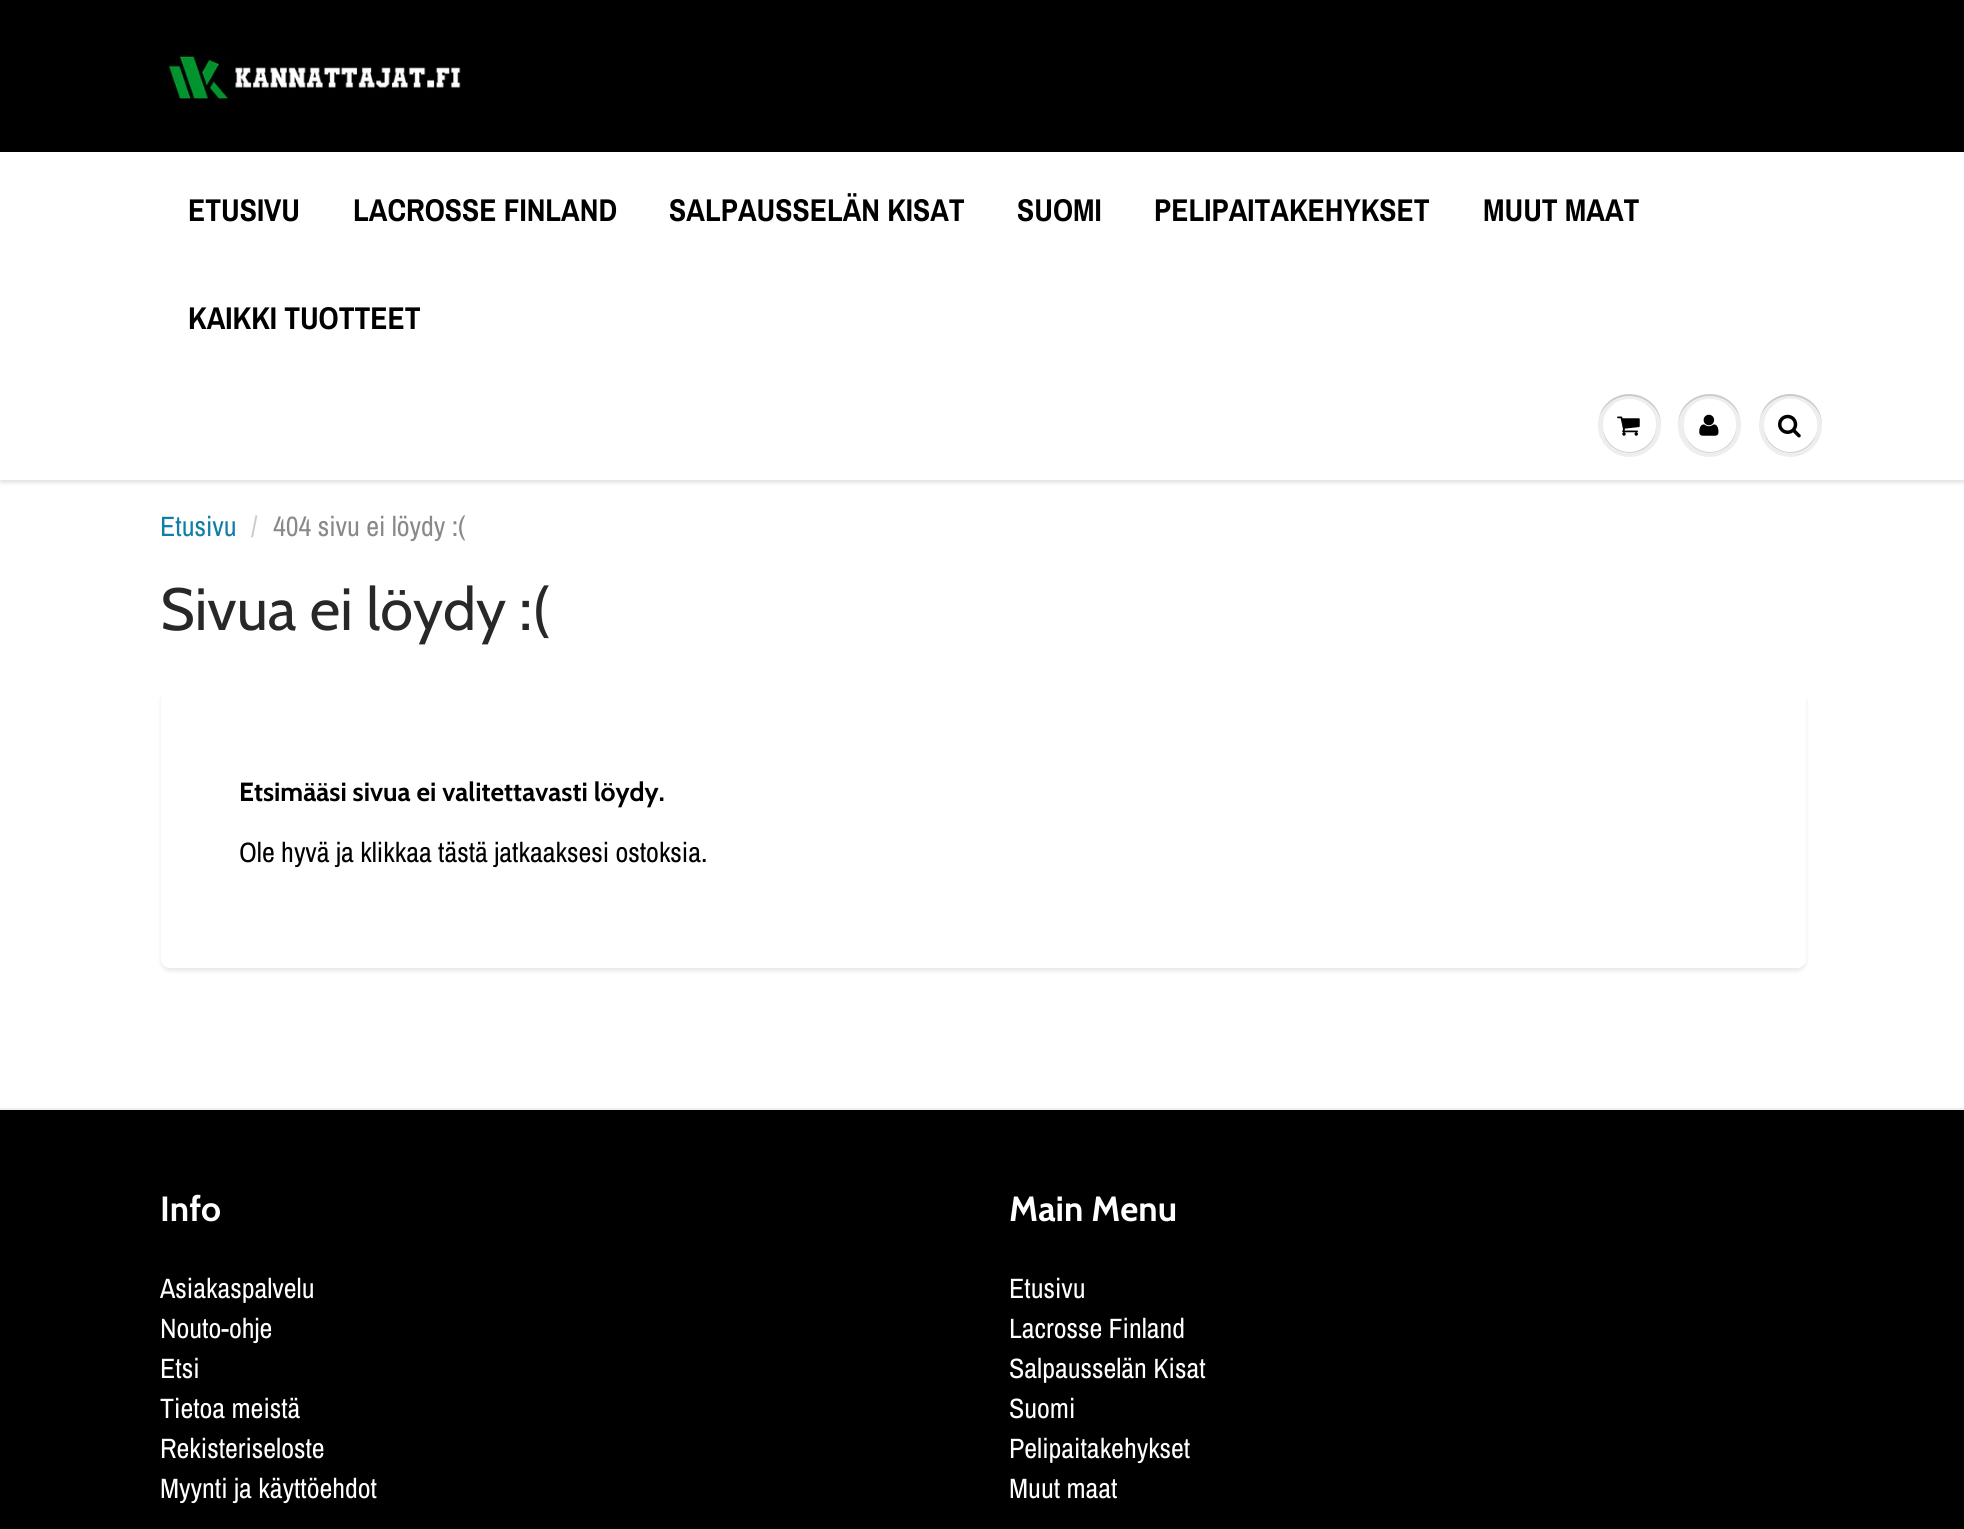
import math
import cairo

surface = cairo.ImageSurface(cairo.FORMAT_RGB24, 1964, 1529)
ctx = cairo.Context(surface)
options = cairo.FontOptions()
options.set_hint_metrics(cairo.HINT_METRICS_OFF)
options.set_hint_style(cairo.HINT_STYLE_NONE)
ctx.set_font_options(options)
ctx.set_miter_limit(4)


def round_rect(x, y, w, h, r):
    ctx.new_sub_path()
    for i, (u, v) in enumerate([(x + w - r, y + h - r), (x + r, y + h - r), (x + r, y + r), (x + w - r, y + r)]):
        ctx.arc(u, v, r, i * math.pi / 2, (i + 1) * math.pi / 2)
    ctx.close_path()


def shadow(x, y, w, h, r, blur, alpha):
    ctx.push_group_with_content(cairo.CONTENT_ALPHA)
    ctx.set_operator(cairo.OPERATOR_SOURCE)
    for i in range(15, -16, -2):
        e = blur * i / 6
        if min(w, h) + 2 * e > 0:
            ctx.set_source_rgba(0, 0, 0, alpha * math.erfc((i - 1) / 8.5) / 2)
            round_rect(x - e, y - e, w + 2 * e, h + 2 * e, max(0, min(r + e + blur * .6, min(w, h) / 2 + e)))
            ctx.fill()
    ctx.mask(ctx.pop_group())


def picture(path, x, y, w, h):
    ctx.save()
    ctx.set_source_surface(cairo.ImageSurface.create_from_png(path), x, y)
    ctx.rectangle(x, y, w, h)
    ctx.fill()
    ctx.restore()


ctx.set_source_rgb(1, 1, 1)
ctx.paint()
ctx.set_source_rgb(0, 0, 0)
ctx.rectangle(0, 0, 1964, 152)
ctx.fill()
picture("img1.png", 168, 55, 294, 45)
ctx.set_source_rgb(0.043, 0.098, 0.11)
shadow(0, 156, 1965, 327, 0, 2, 0.12)
ctx.set_source_rgb(1, 1, 1)
ctx.rectangle(0, 153, 1964, 327)
ctx.fill()
ctx.select_font_face("Archivo Narrow", cairo.FONT_SLANT_NORMAL, cairo.FONT_WEIGHT_BOLD)
ctx.set_font_size(31.5)
ctx.set_source_rgb(0, 0, 0)
ctx.move_to(188, 221)
ctx.show_text("ETUSIVU")
ctx.move_to(353, 221)
ctx.show_text("LACROSSE FINLAND")
ctx.move_to(669, 221)
ctx.show_text("SALPAUSSELÄN KISAT")
ctx.move_to(1017, 221)
ctx.show_text("SUOMI")
ctx.move_to(1154, 221)
ctx.show_text("PELIPAITAKEHYKSET")
ctx.move_to(1483, 221)
ctx.show_text("MUUT MAAT")
ctx.move_to(188, 329)
ctx.show_text("KAIKKI TUOTTEET")
ctx.set_source_rgb(0.929, 0.937, 0.937)
ctx.new_path()
ctx.arc(1629.5, 425.5, 31.5, 0, 2 * math.pi)
ctx.fill()
ctx.set_source_rgb(0.788, 0.796, 0.796)
ctx.new_path()
ctx.move_to(1629, 396)
ctx.curve_to(1647, 396, 1661, 410, 1661, 426)
ctx.curve_to(1662, 395, 1621, 382, 1603, 408)
ctx.curve_to(1600, 413, 1598, 420, 1598, 426)
ctx.curve_to(1598, 410, 1612, 396, 1629, 396)
ctx.close_path()
ctx.fill()
ctx.new_path()
ctx.move_to(1603, 426)
ctx.curve_to(1602, 455, 1643, 463, 1654, 437)
ctx.curve_to(1656, 431, 1657, 425, 1655, 419)
ctx.curve_to(1661, 444, 1630, 462, 1611, 444)
ctx.curve_to(1606, 439, 1603, 433, 1603, 426)
ctx.close_path()
ctx.fill()
ctx.set_source_rgb(1, 1, 1)
ctx.arc(1629.5, 425.5, 26.5, 0, 2 * math.pi)
ctx.fill()
ctx.new_path()
ctx.move_to(1629, 401)
ctx.curve_to(1644, 401, 1656, 413, 1656, 426)
ctx.curve_to(1657, 400, 1622, 389, 1608, 411)
ctx.curve_to(1604, 415, 1603, 421, 1603, 426)
ctx.curve_to(1603, 413, 1615, 401, 1629, 401)
ctx.close_path()
ctx.fill()
picture("img2.png", 1617, 416, 23, 20)
ctx.set_source_rgb(0.929, 0.937, 0.937)
ctx.arc(1709.5, 425.5, 31.5, 0, 2 * math.pi)
ctx.fill()
ctx.set_source_rgb(0.788, 0.796, 0.796)
ctx.new_path()
ctx.move_to(1710, 396)
ctx.curve_to(1727, 396, 1741, 410, 1741, 426)
ctx.curve_to(1741, 420, 1739, 413, 1736, 408)
ctx.curve_to(1718, 382, 1677, 395, 1678, 426)
ctx.curve_to(1678, 410, 1692, 396, 1710, 396)
ctx.close_path()
ctx.move_to(1685, 433)
ctx.curve_to(1692, 463, 1737, 457, 1736, 426)
ctx.curve_to(1735, 455, 1694, 461, 1685, 433)
ctx.close_path()
ctx.fill()
ctx.set_source_rgb(1, 1, 1)
round_rect(1684, 399, 52, 53, 26)
ctx.fill()
ctx.new_path()
ctx.move_to(1710, 401)
ctx.curve_to(1724, 401, 1736, 413, 1736, 427)
ctx.curve_to(1737, 390, 1683, 390, 1684, 426)
ctx.curve_to(1684, 413, 1695, 401, 1710, 401)
ctx.close_path()
ctx.fill()
picture("img3.png", 1699, 414, 20, 22)
ctx.set_source_rgb(0.929, 0.937, 0.937)
ctx.arc(1790.5, 425.5, 31.5, 0, 2 * math.pi)
ctx.fill()
ctx.set_source_rgb(0.788, 0.796, 0.796)
ctx.new_path()
ctx.move_to(1790, 396)
ctx.curve_to(1808, 396, 1822, 410, 1822, 426)
ctx.curve_to(1823, 395, 1782, 382, 1764, 408)
ctx.curve_to(1761, 413, 1759, 420, 1759, 426)
ctx.curve_to(1759, 410, 1773, 396, 1790, 396)
ctx.close_path()
ctx.fill()
ctx.new_path()
ctx.move_to(1764, 426)
ctx.curve_to(1763, 455, 1804, 463, 1815, 437)
ctx.curve_to(1817, 431, 1818, 425, 1816, 419)
ctx.curve_to(1822, 444, 1791, 462, 1772, 444)
ctx.curve_to(1767, 439, 1764, 433, 1764, 426)
ctx.close_path()
ctx.fill()
ctx.set_source_rgb(1, 1, 1)
ctx.arc(1790.5, 425.5, 26.5, 0, 2 * math.pi)
ctx.fill()
ctx.new_path()
ctx.move_to(1790, 401)
ctx.curve_to(1811, 401, 1823, 424, 1812, 441)
ctx.curve_to(1831, 416, 1795, 383, 1772, 407)
ctx.curve_to(1767, 412, 1764, 419, 1764, 426)
ctx.curve_to(1764, 413, 1776, 401, 1790, 401)
ctx.close_path()
ctx.fill()
picture("img4.png", 1778, 414, 23, 24)
ctx.select_font_face("Archivo Narrow")
ctx.set_font_size(28)
ctx.set_source_rgb(0.063, 0.498, 0.659)
ctx.move_to(160, 536)
ctx.show_text("Etusivu")
ctx.set_source_rgb(0.8, 0.8, 0.8)
ctx.move_to(251, 536)
ctx.show_text("/")
ctx.set_source_rgb(0.537, 0.537, 0.537)
ctx.move_to(273, 536)
ctx.show_text("404 sivu ei löydy :(")
ctx.select_font_face("Cabin")
ctx.set_font_size(59.5)
ctx.set_source_rgb(0.157, 0.157, 0.153)
ctx.move_to(160, 630)
ctx.show_text("Sivua ei löydy :(")
ctx.set_source_rgb(0.043, 0.098, 0.11)
shadow(161, 693, 1645, 278, 9, 2, 0.1)
ctx.set_source_rgb(1, 1, 1)
round_rect(161, 690, 1645, 278, 9)
ctx.fill()
ctx.select_font_face("Cabin", cairo.FONT_SLANT_NORMAL, cairo.FONT_WEIGHT_BOLD)
ctx.set_font_size(26.25)
ctx.set_source_rgb(0, 0, 0)
ctx.move_to(239, 801)
ctx.show_text("Etsimääsi sivua ei valitettavasti löydy.")
ctx.select_font_face("Archivo Narrow")
ctx.set_font_size(28)
ctx.move_to(239, 862)
ctx.show_text("Ole hyvä ja klikkaa tästä jatkaaksesi ostoksia.")
ctx.rectangle(0, 1110, 1964, 419)
ctx.fill()
ctx.set_source_rgb(0.925, 0.937, 0.937)
ctx.rectangle(0, 1108, 1964, 2)
ctx.fill()
ctx.select_font_face("Cabin", cairo.FONT_SLANT_NORMAL, cairo.FONT_WEIGHT_BOLD)
ctx.set_font_size(35)
ctx.set_source_rgb(1, 1, 1)
ctx.move_to(160, 1221)
ctx.show_text("Info")
ctx.select_font_face("Archivo Narrow")
ctx.set_font_size(28)
ctx.move_to(160, 1298)
ctx.show_text("Asiakaspalvelu")
ctx.move_to(160, 1338)
ctx.show_text("Nouto-ohje")
ctx.move_to(160, 1378)
ctx.show_text("Etsi")
ctx.move_to(160, 1418)
ctx.show_text("Tietoa meistä")
ctx.move_to(160, 1458)
ctx.show_text("Rekisteriseloste")
ctx.move_to(160, 1498)
ctx.show_text("Myynti ja käyttöehdot")
ctx.select_font_face("Cabin", cairo.FONT_SLANT_NORMAL, cairo.FONT_WEIGHT_BOLD)
ctx.set_font_size(35)
ctx.move_to(1009, 1221)
ctx.show_text("Main Menu")
ctx.select_font_face("Archivo Narrow")
ctx.set_font_size(28)
ctx.move_to(1009, 1298)
ctx.show_text("Etusivu")
ctx.move_to(1009, 1338)
ctx.show_text("Lacrosse Finland")
ctx.move_to(1009, 1378)
ctx.show_text("Salpausselän Kisat")
ctx.move_to(1009, 1418)
ctx.show_text("Suomi")
ctx.move_to(1009, 1458)
ctx.show_text("Pelipaitakehykset")
ctx.move_to(1009, 1498)
ctx.show_text("Muut maat")
surface.write_to_png("page.png")
